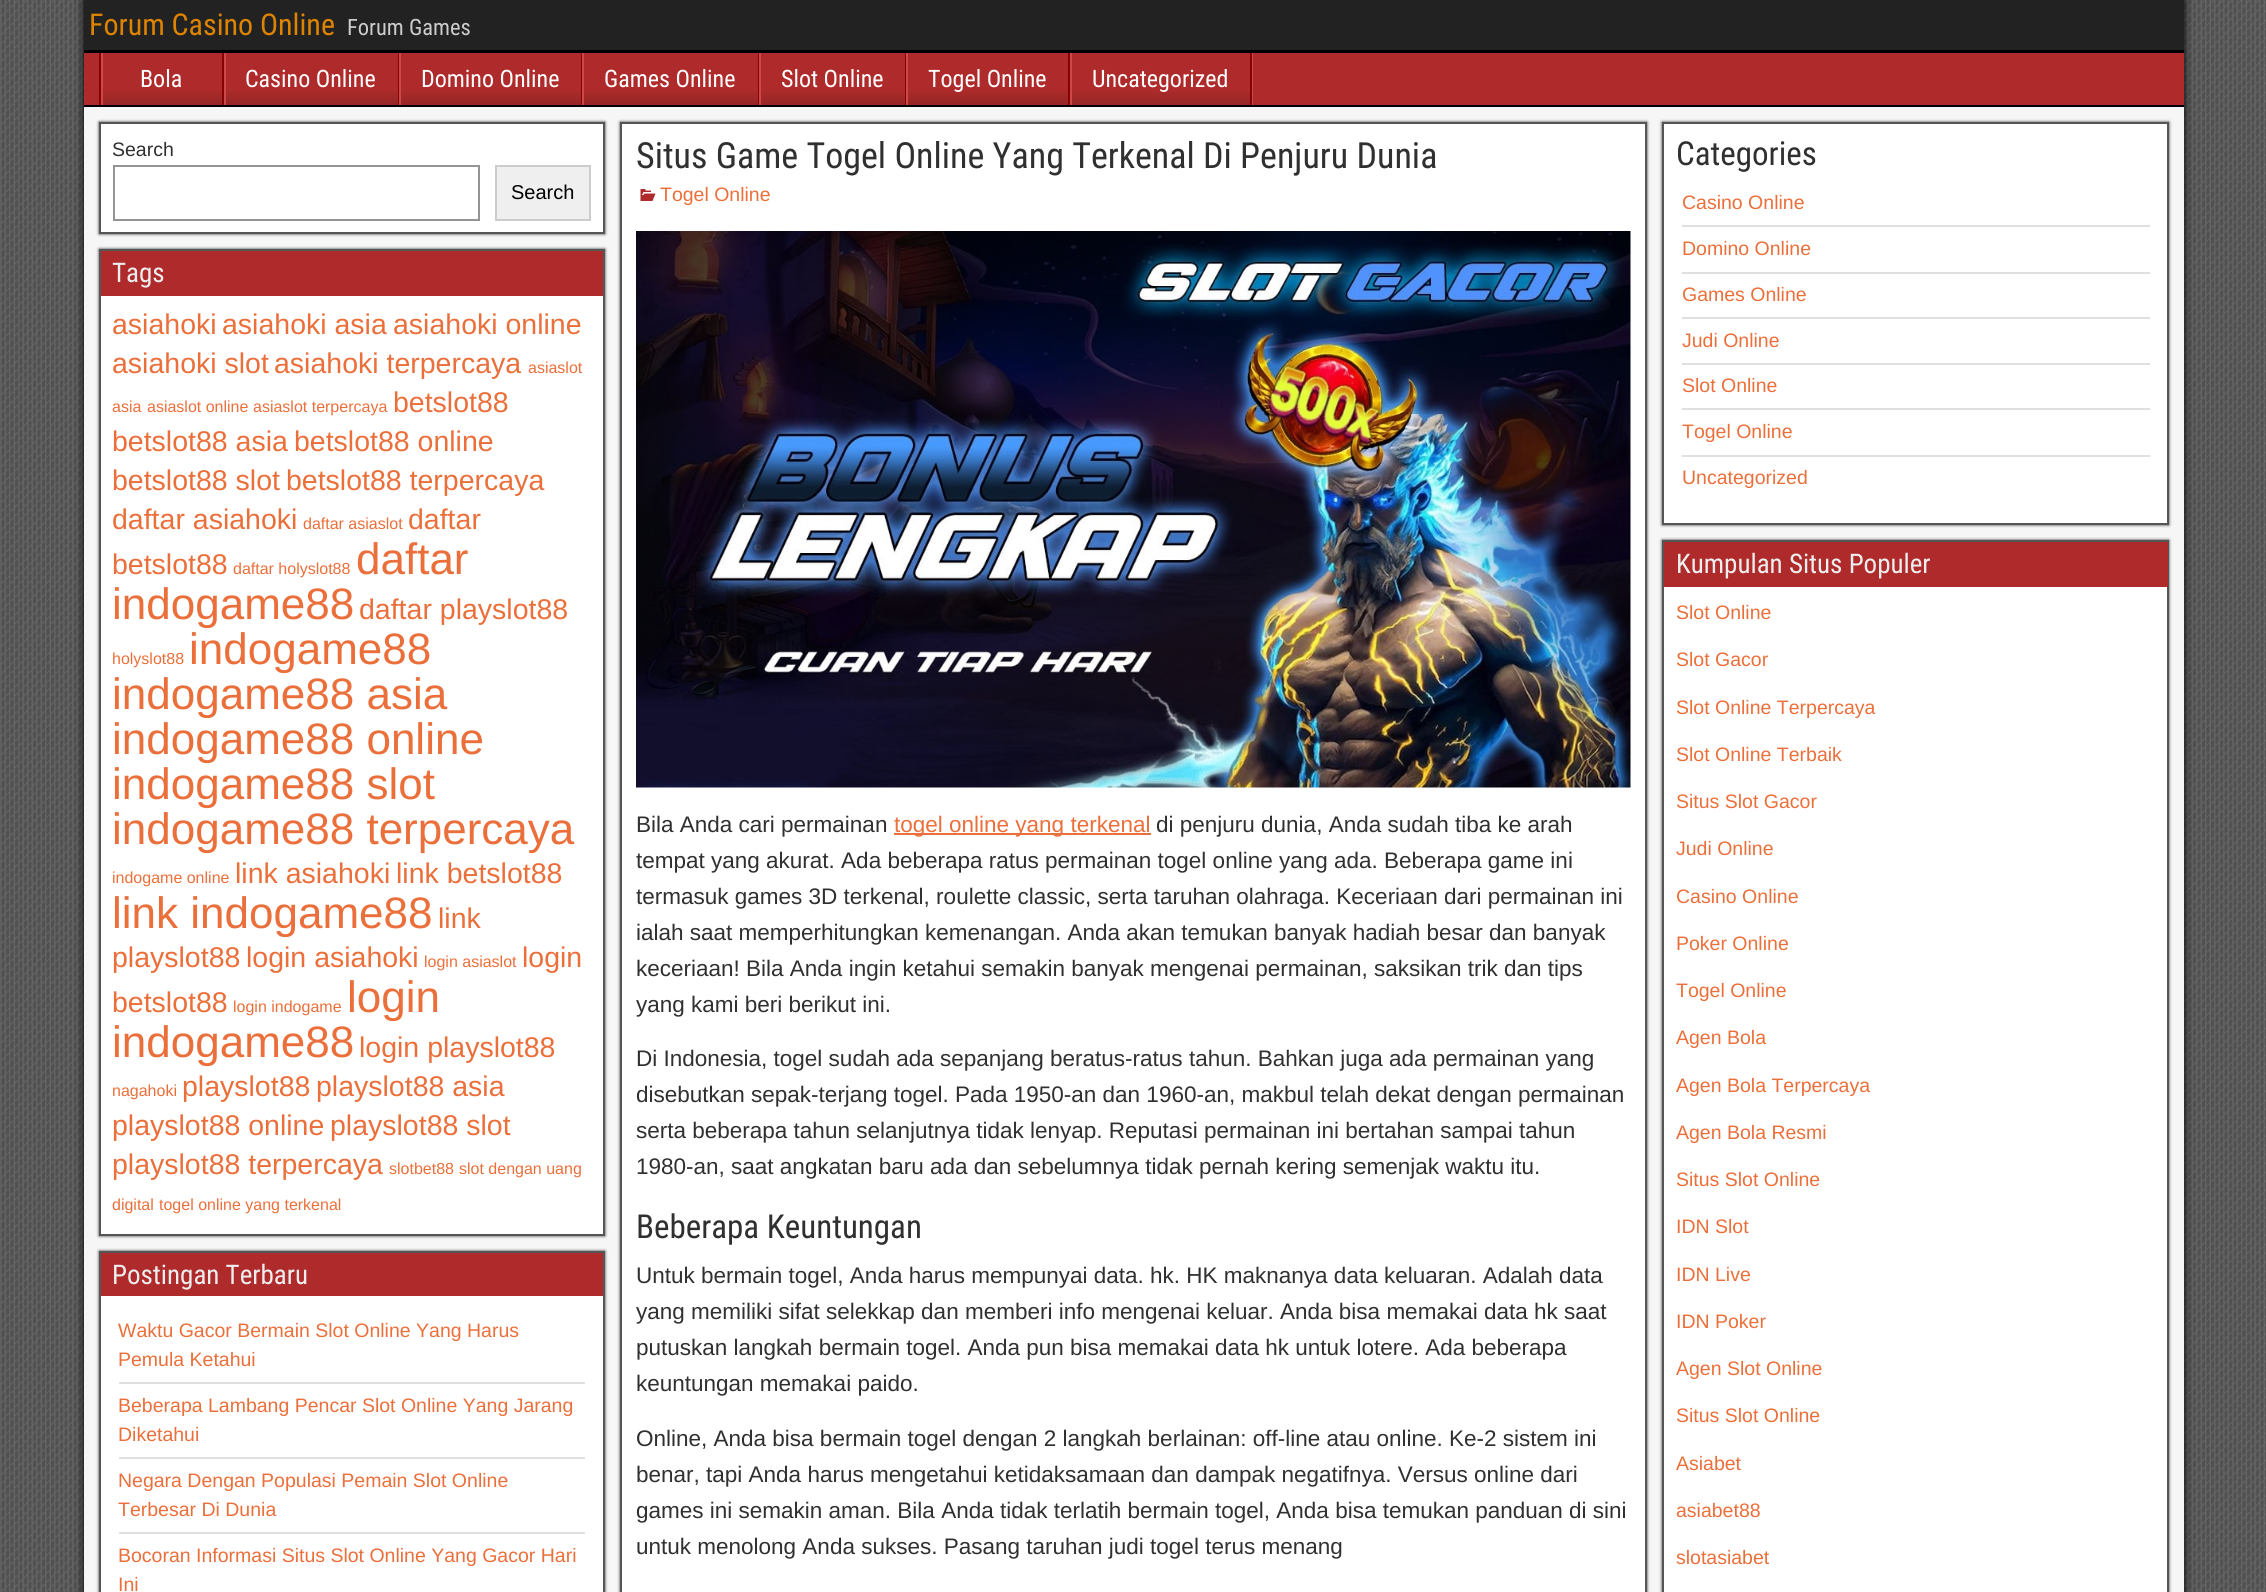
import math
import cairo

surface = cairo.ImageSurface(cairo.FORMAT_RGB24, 2266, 1592)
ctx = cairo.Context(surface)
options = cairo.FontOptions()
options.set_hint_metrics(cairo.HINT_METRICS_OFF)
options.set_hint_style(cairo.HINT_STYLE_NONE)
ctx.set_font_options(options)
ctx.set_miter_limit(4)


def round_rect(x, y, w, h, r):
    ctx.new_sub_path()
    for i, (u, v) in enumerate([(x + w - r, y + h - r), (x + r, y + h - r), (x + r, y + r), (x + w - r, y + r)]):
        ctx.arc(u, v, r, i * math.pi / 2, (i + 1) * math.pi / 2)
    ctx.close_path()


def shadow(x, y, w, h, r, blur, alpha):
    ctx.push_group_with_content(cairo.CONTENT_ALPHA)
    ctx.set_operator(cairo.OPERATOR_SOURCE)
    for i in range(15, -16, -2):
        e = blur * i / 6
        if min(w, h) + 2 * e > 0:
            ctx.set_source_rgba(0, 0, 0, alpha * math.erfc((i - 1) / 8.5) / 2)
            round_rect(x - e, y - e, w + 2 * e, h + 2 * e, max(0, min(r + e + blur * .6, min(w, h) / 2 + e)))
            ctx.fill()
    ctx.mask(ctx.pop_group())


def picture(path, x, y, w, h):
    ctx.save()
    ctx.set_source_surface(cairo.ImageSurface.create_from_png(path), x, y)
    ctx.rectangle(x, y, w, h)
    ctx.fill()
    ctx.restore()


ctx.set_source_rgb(0.314, 0.314, 0.314)
ctx.paint()
picture("img1.png", 0, 0, 2266, 1592)
ctx.set_source_rgb(0, 0, 0)
shadow(84, 0, 2100, 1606, 0, 4.5, 1)
ctx.set_source_rgb(0.133, 0.133, 0.133)
ctx.rectangle(84, 0, 2100, 50)
ctx.fill()
ctx.set_source_rgb(0, 0, 0)
ctx.rectangle(84, 50, 2100, 3)
ctx.fill()
ctx.select_font_face("Roboto Condensed")
ctx.set_font_size(30)
ctx.set_source_rgb(0.863, 0.514, 0)
ctx.move_to(89, 35)
ctx.show_text("Forum Casino Online")
ctx.set_font_size(22.5)
ctx.set_source_rgb(0.8, 0.8, 0.8)
ctx.move_to(347, 35)
ctx.show_text("Forum Games")
ctx.set_source_rgb(0.686, 0.169, 0.169)
ctx.rectangle(84, 53, 2100, 52)
ctx.fill()
ctx.set_source_rgb(0, 0, 0)
ctx.rectangle(84, 105, 2100, 2)
ctx.fill()
ctx.set_source_rgb(0.804, 0.286, 0.286)
ctx.rectangle(1252, 53, 1, 52)
ctx.fill()
ctx.set_source_rgb(0.529, 0.012, 0.012)
ctx.rectangle(99, 53, 2, 52)
ctx.fill()
gradient = cairo.LinearGradient(162, 53, 162, 105)
gradient.add_color_stop_rgba(0.7, 0.686, 0.169, 0.169, 1)
gradient.add_color_stop_rgba(1, 0.584, 0.145, 0.145, 1)
ctx.set_source(gradient)
ctx.rectangle(103, 91, 119, 14)
ctx.fill()
ctx.set_source_rgb(0.529, 0.012, 0.012)
ctx.rectangle(222, 53, 2, 52)
ctx.fill()
ctx.set_source_rgb(0.804, 0.286, 0.286)
ctx.rectangle(101, 53, 2, 52)
ctx.fill()
ctx.set_font_size(24)
ctx.set_source_rgb(1, 1, 1)
ctx.move_to(140, 87)
ctx.show_text("Bola")
gradient = cairo.LinearGradient(311, 52, 311, 105)
gradient.add_color_stop_rgba(0.7, 0.686, 0.169, 0.169, 1)
gradient.add_color_stop_rgba(1, 0.584, 0.145, 0.145, 1)
ctx.set_source(gradient)
ctx.rectangle(226, 91, 172, 14)
ctx.fill()
ctx.set_source_rgb(0.529, 0.012, 0.012)
ctx.rectangle(398, 53, 1, 52)
ctx.fill()
ctx.set_source_rgb(0.804, 0.286, 0.286)
ctx.rectangle(224, 53, 2, 52)
ctx.fill()
ctx.set_source_rgb(1, 1, 1)
ctx.move_to(245, 87)
ctx.show_text("Casino Online")
gradient = cairo.LinearGradient(491, 52, 491, 105)
gradient.add_color_stop_rgba(0.7, 0, 0, 0, 0)
gradient.add_color_stop_rgba(1, 0, 0, 0, 0.15)
ctx.set_source(gradient)
ctx.rectangle(401, 91, 180, 14)
ctx.fill()
ctx.set_source_rgb(0.529, 0.012, 0.012)
ctx.rectangle(581, 53, 1, 52)
ctx.fill()
ctx.set_source_rgb(0.804, 0.286, 0.286)
ctx.rectangle(399, 53, 2, 52)
ctx.fill()
ctx.set_source_rgb(1, 1, 1)
ctx.move_to(421, 87)
ctx.show_text("Domino Online")
gradient = cairo.LinearGradient(671, 52, 671, 105)
gradient.add_color_stop_rgba(0.7, 0, 0, 0, 0)
gradient.add_color_stop_rgba(1, 0, 0, 0, 0.15)
ctx.set_source(gradient)
ctx.rectangle(584, 91, 174, 14)
ctx.fill()
ctx.set_source_rgb(0.529, 0.012, 0.012)
ctx.rectangle(758, 53, 1, 52)
ctx.fill()
ctx.set_source_rgb(0.804, 0.286, 0.286)
ctx.rectangle(582, 53, 2, 52)
ctx.fill()
ctx.set_source_rgb(1, 1, 1)
ctx.move_to(604, 87)
ctx.show_text("Games Online")
gradient = cairo.LinearGradient(833, 52, 833, 105)
gradient.add_color_stop_rgba(0.7, 0, 0, 0, 0)
gradient.add_color_stop_rgba(1, 0, 0, 0, 0.15)
ctx.set_source(gradient)
ctx.rectangle(761, 91, 144, 14)
ctx.fill()
ctx.set_source_rgb(0.529, 0.012, 0.012)
ctx.rectangle(905, 53, 1, 52)
ctx.fill()
ctx.set_source_rgb(0.804, 0.286, 0.286)
ctx.rectangle(759, 53, 2, 52)
ctx.fill()
ctx.set_source_rgb(1, 1, 1)
ctx.move_to(781, 87)
ctx.show_text("Slot Online")
gradient = cairo.LinearGradient(988, 52, 988, 105)
gradient.add_color_stop_rgba(0.7, 0, 0, 0, 0)
gradient.add_color_stop_rgba(1, 0, 0, 0, 0.15)
ctx.set_source(gradient)
ctx.rectangle(908, 91, 160, 14)
ctx.fill()
ctx.set_source_rgb(0.529, 0.012, 0.012)
ctx.rectangle(1068, 53, 2, 52)
ctx.fill()
ctx.set_source_rgb(0.804, 0.286, 0.286)
ctx.rectangle(906, 53, 2, 52)
ctx.fill()
ctx.set_source_rgb(1, 1, 1)
ctx.move_to(928, 87)
ctx.show_text("Togel Online")
gradient = cairo.LinearGradient(1160, 52, 1160, 105)
gradient.add_color_stop_rgba(0.7, 0.686, 0.169, 0.169, 1)
gradient.add_color_stop_rgba(1, 0.584, 0.145, 0.145, 1)
ctx.set_source(gradient)
ctx.rectangle(1072, 91, 178, 14)
ctx.fill()
ctx.set_source_rgb(0.529, 0.012, 0.012)
ctx.rectangle(1250, 53, 2, 52)
ctx.fill()
ctx.set_source_rgb(0.804, 0.286, 0.286)
ctx.rectangle(1070, 53, 2, 52)
ctx.fill()
ctx.set_source_rgb(1, 1, 1)
ctx.move_to(1092, 87)
ctx.show_text("Uncategorized")
ctx.set_source_rgb(0.961, 0.961, 0.961)
ctx.rectangle(84, 107, 2100, 1485)
ctx.fill()
ctx.set_source_rgb(0.2, 0.2, 0.2)
shadow(99, 122, 506, 112, 0, 1.5, 1)
ctx.set_source_rgb(1, 1, 1)
ctx.rectangle(100, 123, 504, 110)
ctx.fill_preserve()
ctx.set_source_rgb(0.333, 0.333, 0.333)
ctx.stroke()
ctx.select_font_face("Liberation Sans")
ctx.set_font_size(19.5)
ctx.set_source_rgb(0.188, 0.188, 0.188)
ctx.move_to(112, 156)
ctx.show_text("Search")
ctx.rectangle(114, 166, 365, 54)
ctx.set_source_rgb(0.58, 0.58, 0.58)
ctx.stroke()
ctx.set_source_rgb(0.937, 0.937, 0.937)
ctx.rectangle(496, 166, 94, 54)
ctx.fill_preserve()
ctx.set_source_rgb(0.8, 0.8, 0.8)
ctx.stroke()
ctx.set_font_size(20)
ctx.set_source_rgb(0, 0, 0)
ctx.move_to(511, 199)
ctx.show_text("Search")
ctx.set_source_rgb(0.2, 0.2, 0.2)
shadow(99, 249, 506, 987, 0, 1.5, 1)
ctx.set_source_rgb(1, 1, 1)
ctx.rectangle(101, 296, 502, 938)
ctx.fill()
ctx.rectangle(100, 250, 504, 985)
ctx.set_source_rgb(0.333, 0.333, 0.333)
ctx.stroke()
ctx.set_source_rgb(0.686, 0.169, 0.169)
ctx.rectangle(101, 251, 502, 45)
ctx.fill()
ctx.select_font_face("Roboto Condensed")
ctx.set_font_size(27)
ctx.set_source_rgb(0.933, 0.933, 0.933)
ctx.move_to(112, 282)
ctx.show_text("Tags")
ctx.select_font_face("Liberation Sans")
ctx.set_font_size(28.5)
ctx.set_source_rgb(0.918, 0.435, 0.227)
ctx.move_to(112, 334)
ctx.show_text("asiahoki")
ctx.move_to(222, 334)
ctx.show_text("asiahoki asia")
ctx.move_to(393, 334)
ctx.show_text("asiahoki online")
ctx.move_to(112, 373)
ctx.show_text("asiahoki slot")
ctx.move_to(274, 373)
ctx.show_text("asiahoki terpercaya")
ctx.set_font_size(16)
ctx.move_to(528, 373)
ctx.show_text("asiaslot")
ctx.move_to(112, 412)
ctx.show_text("asia")
ctx.move_to(147, 412)
ctx.show_text("asiaslot online")
ctx.move_to(253, 412)
ctx.show_text("asiaslot terpercaya")
ctx.set_font_size(28.5)
ctx.move_to(393, 412)
ctx.show_text("betslot88")
ctx.move_to(112, 451)
ctx.show_text("betslot88 asia")
ctx.move_to(294, 451)
ctx.show_text("betslot88 online")
ctx.move_to(112, 490)
ctx.show_text("betslot88 slot")
ctx.move_to(286, 490)
ctx.show_text("betslot88 terpercaya")
ctx.move_to(112, 529)
ctx.show_text("daftar asiahoki")
ctx.set_font_size(16)
ctx.move_to(303, 529)
ctx.show_text("daftar asiaslot")
ctx.set_font_size(28.5)
ctx.move_to(408, 529)
ctx.show_text("daftar")
ctx.move_to(112, 574)
ctx.show_text("betslot88")
ctx.set_font_size(16)
ctx.move_to(233, 574)
ctx.show_text("daftar holyslot88")
ctx.set_font_size(44)
ctx.move_to(356, 574)
ctx.show_text("daftar")
ctx.move_to(112, 619)
ctx.show_text("indogame88")
ctx.set_font_size(28.5)
ctx.move_to(359, 619)
ctx.show_text("daftar playslot88")
ctx.set_font_size(16)
ctx.move_to(112, 664)
ctx.show_text("holyslot88")
ctx.set_font_size(44)
ctx.move_to(189, 664)
ctx.show_text("indogame88")
ctx.move_to(112, 709)
ctx.show_text("indogame88 asia")
ctx.move_to(112, 754)
ctx.show_text("indogame88 online")
ctx.move_to(112, 799)
ctx.show_text("indogame88 slot")
ctx.move_to(112, 844)
ctx.show_text("indogame88 terpercaya")
ctx.set_font_size(16)
ctx.move_to(112, 883)
ctx.show_text("indogame online")
ctx.set_font_size(28.5)
ctx.move_to(235, 883)
ctx.show_text("link asiahoki")
ctx.move_to(396, 883)
ctx.show_text("link betslot88")
ctx.set_font_size(44)
ctx.move_to(112, 928)
ctx.show_text("link indogame88")
ctx.set_font_size(28.5)
ctx.move_to(438, 928)
ctx.show_text("link")
ctx.move_to(112, 967)
ctx.show_text("playslot88")
ctx.move_to(246, 967)
ctx.show_text("login asiahoki")
ctx.set_font_size(16)
ctx.move_to(424, 967)
ctx.show_text("login asiaslot")
ctx.set_font_size(28.5)
ctx.move_to(522, 967)
ctx.show_text("login")
ctx.move_to(112, 1012)
ctx.show_text("betslot88")
ctx.set_font_size(16)
ctx.move_to(233, 1012)
ctx.show_text("login indogame")
ctx.set_font_size(44)
ctx.move_to(347, 1012)
ctx.show_text("login")
ctx.move_to(112, 1057)
ctx.show_text("indogame88")
ctx.set_font_size(28.5)
ctx.move_to(359, 1057)
ctx.show_text("login playslot88")
ctx.set_font_size(16)
ctx.move_to(112, 1096)
ctx.show_text("nagahoki")
ctx.set_font_size(28.5)
ctx.move_to(182, 1096)
ctx.show_text("playslot88")
ctx.move_to(316, 1096)
ctx.show_text("playslot88 asia")
ctx.move_to(112, 1135)
ctx.show_text("playslot88 online")
ctx.move_to(330, 1135)
ctx.show_text("playslot88 slot")
ctx.move_to(112, 1174)
ctx.show_text("playslot88 terpercaya")
ctx.set_font_size(16)
ctx.move_to(389, 1174)
ctx.show_text("slotbet88")
ctx.move_to(459, 1174)
ctx.show_text("slot dengan uang")
ctx.move_to(112, 1210)
ctx.show_text("digital")
ctx.move_to(159, 1210)
ctx.show_text("togel online yang terkenal")
ctx.set_source_rgb(0.2, 0.2, 0.2)
shadow(99, 1251, 506, 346, 0, 1.5, 1)
ctx.set_source_rgb(1, 1, 1)
ctx.rectangle(101, 1296, 502, 296)
ctx.fill()
ctx.rectangle(100, 1252, 504, 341)
ctx.set_source_rgb(0.333, 0.333, 0.333)
ctx.stroke()
ctx.set_source_rgb(0.686, 0.169, 0.169)
ctx.rectangle(101, 1253, 502, 43)
ctx.fill()
ctx.select_font_face("Roboto Condensed")
ctx.set_font_size(27)
ctx.set_source_rgb(0.933, 0.933, 0.933)
ctx.move_to(112, 1284)
ctx.show_text("Postingan Terbaru")
ctx.set_source_rgb(0.878, 0.878, 0.878)
ctx.rectangle(119, 1382, 466, 2)
ctx.fill()
ctx.select_font_face("Liberation Sans")
ctx.set_font_size(19.5)
ctx.set_source_rgb(0.918, 0.435, 0.227)
ctx.move_to(118, 1337)
ctx.show_text("Waktu Gacor Bermain Slot Online Yang Harus")
ctx.move_to(118, 1366)
ctx.show_text("Pemula Ketahui")
ctx.set_source_rgb(0.878, 0.878, 0.878)
ctx.rectangle(119, 1457, 466, 2)
ctx.fill()
ctx.set_source_rgb(0.918, 0.435, 0.227)
ctx.move_to(118, 1412)
ctx.show_text("Beberapa Lambang Pencar Slot Online Yang Jarang")
ctx.move_to(118, 1441)
ctx.show_text("Diketahui")
ctx.set_source_rgb(0.878, 0.878, 0.878)
ctx.rectangle(119, 1532, 466, 2)
ctx.fill()
ctx.set_source_rgb(0.918, 0.435, 0.227)
ctx.move_to(118, 1487)
ctx.show_text("Negara Dengan Populasi Pemain Slot Online")
ctx.move_to(118, 1516)
ctx.show_text("Terbesar Di Dunia")
ctx.move_to(118, 1562)
ctx.show_text("Bocoran Informasi Situs Slot Online Yang Gacor Hari")
ctx.move_to(118, 1591)
ctx.show_text("Ini")
ctx.set_source_rgb(0.2, 0.2, 0.2)
shadow(620, 122, 1027, 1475, 0, 1.5, 1)
ctx.set_source_rgb(1, 1, 1)
ctx.rectangle(621, 123, 1025, 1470)
ctx.fill_preserve()
ctx.set_source_rgb(0.333, 0.333, 0.333)
ctx.stroke()
ctx.select_font_face("Roboto Condensed")
ctx.set_font_size(36)
ctx.set_source_rgb(0.188, 0.188, 0.188)
ctx.move_to(636, 168)
ctx.show_text("Situs Game Togel Online Yang Terkenal Di Penjuru Dunia")
picture("img2.png", 640, 189, 16, 12)
ctx.select_font_face("Liberation Sans")
ctx.set_font_size(19.5)
ctx.set_source_rgb(0.918, 0.435, 0.227)
ctx.move_to(660, 201)
ctx.show_text("Togel Online")
picture("img3.png", 636, 231, 995, 557)
ctx.select_font_face("Arimo")
ctx.set_font_size(22.5)
ctx.set_source_rgb(0.188, 0.188, 0.188)
ctx.move_to(636, 832)
ctx.show_text("Bila Anda cari permainan")
ctx.set_source_rgb(0.918, 0.435, 0.227)
ctx.rectangle(894, 833, 257, 2)
ctx.fill()
ctx.move_to(894, 832)
ctx.show_text("togel online yang terkenal")
ctx.set_source_rgb(0.188, 0.188, 0.188)
ctx.move_to(1156, 832)
ctx.show_text("di penjuru dunia, Anda sudah tiba ke arah")
ctx.move_to(636, 868)
ctx.show_text("tempat yang akurat. Ada beberapa ratus permainan togel online yang ada. Beberapa game ini")
ctx.move_to(636, 904)
ctx.show_text("termasuk games 3D terkenal, roulette classic, serta taruhan olahraga. Keceriaan dari permainan ini")
ctx.move_to(636, 940)
ctx.show_text("ialah saat memperhitungkan kemenangan. Anda akan temukan banyak hadiah besar dan banyak")
ctx.move_to(636, 976)
ctx.show_text("keceriaan! Bila Anda ingin ketahui semakin banyak mengenai permainan, saksikan trik dan tips")
ctx.move_to(636, 1012)
ctx.show_text("yang kami beri berikut ini.")
ctx.move_to(636, 1066)
ctx.show_text("Di Indonesia, togel sudah ada sepanjang beratus-ratus tahun. Bahkan juga ada permainan yang")
ctx.move_to(636, 1102)
ctx.show_text("disebutkan sepak-terjang togel. Pada 1950-an dan 1960-an, makbul telah dekat dengan permainan")
ctx.move_to(636, 1138)
ctx.show_text("serta beberapa tahun selanjutnya tidak lenyap. Reputasi permainan ini bertahan sampai tahun")
ctx.move_to(636, 1174)
ctx.show_text("1980-an, saat angkatan baru ada dan sebelumnya tidak pernah kering semenjak waktu itu.")
ctx.select_font_face("Roboto Condensed")
ctx.set_font_size(33)
ctx.move_to(636, 1238)
ctx.show_text("Beberapa Keuntungan")
ctx.select_font_face("Arimo")
ctx.set_font_size(22.5)
ctx.move_to(636, 1283)
ctx.show_text("Untuk bermain togel, Anda harus mempunyai data. hk. HK maknanya data keluaran. Adalah data")
ctx.move_to(636, 1319)
ctx.show_text("yang memiliki sifat selekkap dan memberi info mengenai keluar. Anda bisa memakai data hk saat")
ctx.move_to(636, 1355)
ctx.show_text("putuskan langkah bermain togel. Anda pun bisa memakai data hk untuk lotere. Ada beberapa")
ctx.move_to(636, 1391)
ctx.show_text("keuntungan memakai paido.")
ctx.move_to(636, 1446)
ctx.show_text("Online, Anda bisa bermain togel dengan 2 langkah berlainan: off-line atau online. Ke-2 sistem ini")
ctx.move_to(636, 1482)
ctx.show_text("benar, tapi Anda harus mengetahui ketidaksamaan dan dampak negatifnya. Versus online dari")
ctx.move_to(636, 1518)
ctx.show_text("games ini semakin aman. Bila Anda tidak terlatih bermain togel, Anda bisa temukan panduan di sini")
ctx.move_to(636, 1554)
ctx.show_text("untuk menolong Anda sukses. Pasang taruhan judi togel terus menang")
ctx.set_source_rgb(0.2, 0.2, 0.2)
shadow(1662, 122, 507, 403, 0, 1.5, 1)
ctx.set_source_rgb(1, 1, 1)
ctx.rectangle(1663, 123, 505, 401)
ctx.fill_preserve()
ctx.set_source_rgb(0.333, 0.333, 0.333)
ctx.stroke()
ctx.select_font_face("Roboto Condensed")
ctx.set_font_size(33)
ctx.set_source_rgb(0.188, 0.188, 0.188)
ctx.move_to(1676, 165)
ctx.show_text("Categories")
ctx.set_source_rgb(0.878, 0.878, 0.878)
ctx.rectangle(1682, 225, 468, 2)
ctx.fill()
ctx.select_font_face("Liberation Sans")
ctx.set_font_size(19.5)
ctx.set_source_rgb(0.918, 0.435, 0.227)
ctx.move_to(1682, 209)
ctx.show_text("Casino Online")
ctx.set_source_rgb(0.878, 0.878, 0.878)
ctx.rectangle(1682, 272, 468, 2)
ctx.fill()
ctx.set_source_rgb(0.918, 0.435, 0.227)
ctx.move_to(1682, 255)
ctx.show_text("Domino Online")
ctx.set_source_rgb(0.878, 0.878, 0.878)
ctx.rectangle(1682, 317, 468, 2)
ctx.fill()
ctx.set_source_rgb(0.918, 0.435, 0.227)
ctx.move_to(1682, 301)
ctx.show_text("Games Online")
ctx.set_source_rgb(0.878, 0.878, 0.878)
ctx.rectangle(1682, 363, 468, 2)
ctx.fill()
ctx.set_source_rgb(0.918, 0.435, 0.227)
ctx.move_to(1682, 347)
ctx.show_text("Judi Online")
ctx.set_source_rgb(0.878, 0.878, 0.878)
ctx.rectangle(1682, 408, 468, 2)
ctx.fill()
ctx.set_source_rgb(0.918, 0.435, 0.227)
ctx.move_to(1682, 392)
ctx.show_text("Slot Online")
ctx.set_source_rgb(0.878, 0.878, 0.878)
ctx.rectangle(1682, 455, 468, 2)
ctx.fill()
ctx.set_source_rgb(0.918, 0.435, 0.227)
ctx.move_to(1682, 438)
ctx.show_text("Togel Online")
ctx.move_to(1682, 484)
ctx.show_text("Uncategorized")
ctx.set_source_rgb(0.2, 0.2, 0.2)
shadow(1662, 540, 507, 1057, 0, 1.5, 1)
ctx.set_source_rgb(1, 1, 1)
ctx.rectangle(1664, 587, 503, 1005)
ctx.fill()
ctx.rectangle(1663, 541, 505, 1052)
ctx.set_source_rgb(0.333, 0.333, 0.333)
ctx.stroke()
ctx.set_source_rgb(0.686, 0.169, 0.169)
ctx.rectangle(1664, 542, 504, 45)
ctx.fill()
ctx.select_font_face("Roboto Condensed")
ctx.set_font_size(27)
ctx.set_source_rgb(0.933, 0.933, 0.933)
ctx.move_to(1676, 573)
ctx.show_text("Kumpulan Situs Populer")
ctx.select_font_face("Liberation Sans")
ctx.set_font_size(19.5)
ctx.set_source_rgb(0.918, 0.435, 0.227)
ctx.move_to(1676, 619)
ctx.show_text("Slot Online")
ctx.move_to(1676, 666)
ctx.show_text("Slot Gacor")
ctx.move_to(1676, 714)
ctx.show_text("Slot Online Terpercaya")
ctx.move_to(1676, 761)
ctx.show_text("Slot Online Terbaik")
ctx.move_to(1676, 808)
ctx.show_text("Situs Slot Gacor")
ctx.move_to(1676, 855)
ctx.show_text("Judi Online")
ctx.move_to(1676, 903)
ctx.show_text("Casino Online")
ctx.move_to(1676, 950)
ctx.show_text("Poker Online")
ctx.move_to(1676, 997)
ctx.show_text("Togel Online")
ctx.move_to(1676, 1044)
ctx.show_text("Agen Bola")
ctx.move_to(1676, 1092)
ctx.show_text("Agen Bola Terpercaya")
ctx.move_to(1676, 1139)
ctx.show_text("Agen Bola Resmi")
ctx.move_to(1676, 1186)
ctx.show_text("Situs Slot Online")
ctx.move_to(1676, 1233)
ctx.show_text("IDN Slot")
ctx.move_to(1676, 1281)
ctx.show_text("IDN Live")
ctx.move_to(1676, 1328)
ctx.show_text("IDN Poker")
ctx.move_to(1676, 1375)
ctx.show_text("Agen Slot Online")
ctx.move_to(1676, 1422)
ctx.show_text("Situs Slot Online")
ctx.move_to(1676, 1470)
ctx.show_text("Asiabet")
ctx.move_to(1676, 1517)
ctx.show_text("asiabet88")
ctx.move_to(1676, 1564)
ctx.show_text("slotasiabet")
surface.write_to_png("page.png")
